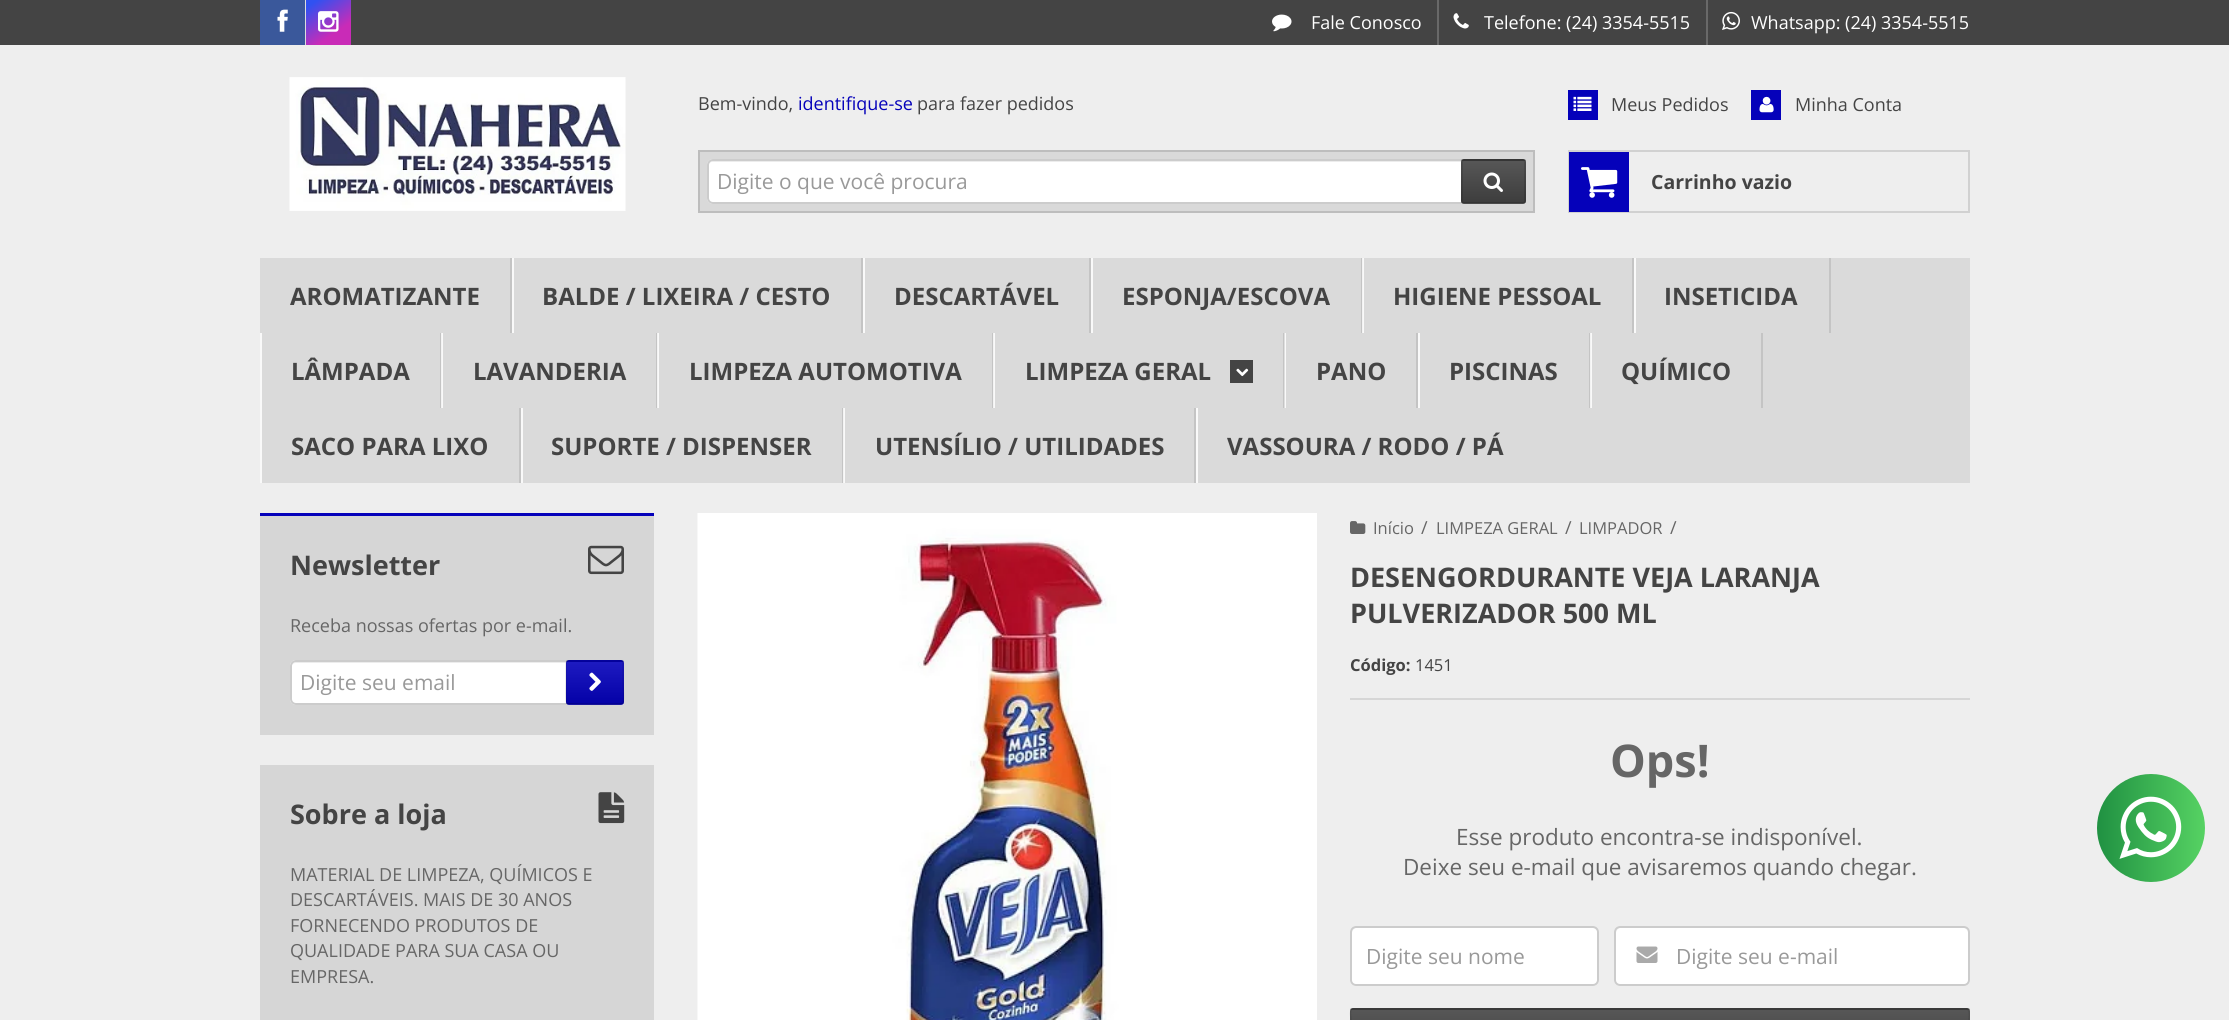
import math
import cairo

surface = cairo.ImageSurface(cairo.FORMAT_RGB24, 2229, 1020)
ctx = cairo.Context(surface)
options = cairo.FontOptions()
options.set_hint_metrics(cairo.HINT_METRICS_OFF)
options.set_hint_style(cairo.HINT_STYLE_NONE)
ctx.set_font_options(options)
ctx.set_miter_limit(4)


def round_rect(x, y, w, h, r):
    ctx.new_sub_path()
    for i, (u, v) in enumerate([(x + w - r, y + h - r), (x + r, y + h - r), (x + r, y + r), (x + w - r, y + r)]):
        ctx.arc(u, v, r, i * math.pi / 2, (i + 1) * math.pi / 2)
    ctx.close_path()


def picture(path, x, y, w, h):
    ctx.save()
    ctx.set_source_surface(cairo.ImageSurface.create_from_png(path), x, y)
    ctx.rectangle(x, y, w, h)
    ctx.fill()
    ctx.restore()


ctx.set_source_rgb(0.933, 0.933, 0.933)
ctx.paint()
ctx.set_source_rgb(0.267, 0.267, 0.267)
ctx.rectangle(0, 0, 2229, 45)
ctx.fill()
ctx.set_source_rgb(0.227, 0.345, 0.608)
ctx.rectangle(260, 0, 45, 45)
ctx.fill()
picture("img1.png", 277, 9, 11, 23)
ctx.set_source_rgb(0.867, 0.867, 0.867)
ctx.rectangle(305, 0, 1, 45)
ctx.fill()
gradient = cairo.LinearGradient(311, -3.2, 346, 48)
gradient.add_color_stop_rgba(0.1, 0.188, 0.318, 0.945, 1)
gradient.add_color_stop_rgba(0.7, 0.788, 0.169, 0.718, 1)
ctx.set_source(gradient)
ctx.rectangle(306, 0, 45, 45)
ctx.fill()
picture("img2.png", 318, 11, 21, 21)
picture("img3.png", 1272, 14, 20, 18)
ctx.select_font_face("Open Sans")
ctx.set_font_size(18)
ctx.set_source_rgb(1, 1, 1)
ctx.move_to(1311, 29)
ctx.show_text("Fale Conosco")
ctx.set_source_rgb(0.412, 0.412, 0.412)
ctx.rectangle(1437, 0, 2, 45)
ctx.fill()
picture("img4.png", 1453, 13, 16, 16)
ctx.set_source_rgb(1, 1, 1)
ctx.move_to(1484, 29)
ctx.show_text("Telefone: (24) 3354-5515")
ctx.set_source_rgb(0.412, 0.412, 0.412)
ctx.rectangle(1706, 0, 2, 45)
ctx.fill()
picture("img5.png", 1722, 11, 18, 19)
ctx.set_source_rgb(1, 1, 1)
ctx.move_to(1751, 29)
ctx.show_text("Whatsapp: (24) 3354-5515")
picture("img6.png", 289, 77, 337, 134)
ctx.set_source_rgb(0.267, 0.267, 0.267)
ctx.move_to(698, 110)
ctx.show_text("Bem-vindo,")
ctx.set_source_rgb(0.02, 0.004, 0.729)
ctx.move_to(798, 110)
ctx.show_text("identifique-se")
ctx.set_source_rgb(0.267, 0.267, 0.267)
ctx.move_to(917, 110)
ctx.show_text("para fazer pedidos")
ctx.set_source_rgb(0.02, 0.004, 0.729)
ctx.rectangle(1568, 90, 30, 30)
ctx.fill()
picture("img7.png", 1573, 96, 19, 15)
ctx.set_source_rgb(0.267, 0.267, 0.267)
ctx.move_to(1611, 111)
ctx.show_text("Meus Pedidos")
ctx.set_source_rgb(0.02, 0.004, 0.729)
ctx.rectangle(1751, 90, 30, 30)
ctx.fill()
picture("img8.png", 1759, 96, 15, 17)
ctx.set_source_rgb(0.267, 0.267, 0.267)
ctx.move_to(1795, 111)
ctx.show_text("Minha Conta")
ctx.set_source_rgb(0.851, 0.851, 0.851)
ctx.rectangle(699, 151, 835, 61)
ctx.fill_preserve()
ctx.set_source_rgb(0.741, 0.741, 0.741)
ctx.stroke()
ctx.set_source_rgb(1, 1, 1)
round_rect(707, 159, 790, 45, 6)
ctx.fill()
ctx.set_source_rgb(0.925, 0.925, 0.925)
ctx.new_path()
ctx.move_to(712, 162)
ctx.line_to(1491, 162)
ctx.curve_to(1493, 162, 1496, 164, 1496, 166)
ctx.curve_to(1496, 163, 1494, 161, 1491, 161)
ctx.line_to(713, 161)
ctx.curve_to(710, 161, 708, 163, 708, 166)
ctx.curve_to(708, 164, 710, 162, 712, 162)
ctx.close_path()
ctx.fill()
round_rect(708, 160, 788, 43, 5)
ctx.set_source_rgb(0.8, 0.8, 0.8)
ctx.stroke()
ctx.set_font_size(21)
ctx.set_source_rgb(0.6, 0.6, 0.6)
ctx.move_to(717, 189)
ctx.show_text("Digite o que você procura")
ctx.set_source_rgb(0.267, 0.267, 0.267)
round_rect(1461, 159, 65, 45, 3)
ctx.fill()
gradient = cairo.LinearGradient(1493, 119, 1493, 161)
gradient.add_color_stop_rgba(0, 1, 1, 1, 0.1)
gradient.add_color_stop_rgba(1, 0, 0, 0, 0.1)
ctx.set_source(gradient)
ctx.rectangle(1461, 159, 65, 2)
ctx.fill()
gradient = cairo.LinearGradient(1493, 161, 1493, 203)
gradient.add_color_stop_rgba(0, 1, 1, 1, 0.1)
gradient.add_color_stop_rgba(1, 0, 0, 0, 0.1)
ctx.set_source(gradient)
ctx.rectangle(1461, 161, 65, 42)
ctx.fill()
gradient = cairo.LinearGradient(1493, 203, 1493, 245)
gradient.add_color_stop_rgba(0, 1, 1, 1, 0.1)
gradient.add_color_stop_rgba(1, 0, 0, 0, 0.1)
ctx.set_source(gradient)
ctx.rectangle(1461, 203, 65, 1)
ctx.fill()
round_rect(1462, 160, 63, 43, 2)
ctx.set_source_rgba(0, 0, 0, 0.13)
ctx.stroke()
picture("img9.png", 1483, 172, 20, 20)
ctx.rectangle(1569, 151, 400, 61)
ctx.set_source_rgb(0.82, 0.82, 0.82)
ctx.stroke()
ctx.set_source_rgb(0.02, 0.004, 0.729)
ctx.rectangle(1569, 152, 60, 60)
ctx.fill()
picture("img10.png", 1581, 167, 37, 31)
ctx.select_font_face("Open Sans", cairo.FONT_SLANT_NORMAL, cairo.FONT_WEIGHT_BOLD)
ctx.set_font_size(19.5)
ctx.set_source_rgb(0.267, 0.267, 0.267)
ctx.move_to(1651, 189)
ctx.show_text("Carrinho vazio")
ctx.set_source_rgb(0.855, 0.855, 0.855)
ctx.rectangle(260, 258, 1710, 225)
ctx.fill()
ctx.set_source_rgb(0.973, 0.973, 0.973)
ctx.rectangle(994, 333, 1, 75)
ctx.fill()
ctx.set_source_rgb(0.769, 0.769, 0.769)
ctx.rectangle(1283, 333, 1, 75)
ctx.fill()
ctx.set_source_rgb(0.973, 0.973, 0.973)
ctx.rectangle(844, 408, 1, 75)
ctx.fill()
ctx.rectangle(1591, 333, 1, 75)
ctx.fill()
ctx.rectangle(658, 333, 1, 75)
ctx.fill()
ctx.rectangle(442, 333, 1, 75)
ctx.fill()
ctx.rectangle(1363, 258, 1, 75)
ctx.fill()
ctx.set_source_rgb(0.769, 0.769, 0.769)
ctx.rectangle(510, 258, 2, 75)
ctx.fill()
ctx.set_font_size(24)
ctx.set_source_rgb(0.267, 0.267, 0.267)
ctx.move_to(290, 305)
ctx.show_text("AROMATIZANTE")
ctx.set_source_rgb(0.769, 0.769, 0.769)
ctx.rectangle(861, 258, 2, 75)
ctx.fill()
ctx.set_source_rgb(0.973, 0.973, 0.973)
ctx.rectangle(512, 258, 2, 75)
ctx.fill()
ctx.set_source_rgb(0.267, 0.267, 0.267)
ctx.move_to(542, 305)
ctx.show_text("BALDE / LIXEIRA / CESTO")
ctx.set_source_rgb(0.769, 0.769, 0.769)
ctx.rectangle(1089, 258, 2, 75)
ctx.fill()
ctx.set_source_rgb(0.973, 0.973, 0.973)
ctx.rectangle(863, 258, 2, 75)
ctx.fill()
ctx.set_source_rgb(0.267, 0.267, 0.267)
ctx.move_to(894, 305)
ctx.show_text("DESCARTÁVEL")
ctx.set_source_rgb(0.769, 0.769, 0.769)
ctx.rectangle(1361, 258, 1, 75)
ctx.fill()
ctx.set_source_rgb(0.953, 0.953, 0.953)
ctx.rectangle(1362, 258, 1, 75)
ctx.fill()
ctx.set_source_rgb(0.973, 0.973, 0.973)
ctx.rectangle(1091, 258, 2, 75)
ctx.fill()
ctx.set_source_rgb(0.267, 0.267, 0.267)
ctx.move_to(1122, 305)
ctx.show_text("ESPONJA/ESCOVA")
ctx.set_source_rgb(0.769, 0.769, 0.769)
ctx.rectangle(1632, 258, 2, 75)
ctx.fill()
ctx.set_source_rgb(0.267, 0.267, 0.267)
ctx.move_to(1393, 305)
ctx.show_text("HIGIENE PESSOAL")
ctx.set_source_rgb(0.769, 0.769, 0.769)
ctx.rectangle(1829, 258, 2, 75)
ctx.fill()
ctx.set_source_rgb(0.973, 0.973, 0.973)
ctx.rectangle(1634, 258, 2, 75)
ctx.fill()
ctx.set_source_rgb(0.267, 0.267, 0.267)
ctx.move_to(1664, 305)
ctx.show_text("INSETICIDA")
ctx.set_source_rgb(0.769, 0.769, 0.769)
ctx.rectangle(440, 333, 1, 75)
ctx.fill()
ctx.set_source_rgb(0.953, 0.953, 0.953)
ctx.rectangle(441, 333, 1, 75)
ctx.fill()
ctx.set_source_rgb(0.973, 0.973, 0.973)
ctx.rectangle(260, 333, 2, 150)
ctx.fill()
ctx.set_source_rgb(0.267, 0.267, 0.267)
ctx.move_to(291, 380)
ctx.show_text("LÂMPADA")
ctx.set_source_rgb(0.769, 0.769, 0.769)
ctx.rectangle(656, 333, 1, 75)
ctx.fill()
ctx.set_source_rgb(0.953, 0.953, 0.953)
ctx.rectangle(657, 333, 1, 75)
ctx.fill()
ctx.set_source_rgb(0.267, 0.267, 0.267)
ctx.move_to(473, 380)
ctx.show_text("LAVANDERIA")
ctx.set_source_rgb(0.769, 0.769, 0.769)
ctx.rectangle(992, 333, 1, 75)
ctx.fill()
ctx.set_source_rgb(0.953, 0.953, 0.953)
ctx.rectangle(993, 333, 1, 75)
ctx.fill()
ctx.set_source_rgb(0.267, 0.267, 0.267)
ctx.move_to(689, 380)
ctx.show_text("LIMPEZA AUTOMOTIVA")
ctx.move_to(1025, 380)
ctx.show_text("LIMPEZA GERAL")
ctx.rectangle(1230, 360, 23, 23)
ctx.fill()
picture("img11.png", 1236, 368, 13, 9)
ctx.set_source_rgb(0.769, 0.769, 0.769)
ctx.rectangle(1416, 333, 2, 75)
ctx.fill()
ctx.set_source_rgb(0.973, 0.973, 0.973)
ctx.rectangle(1285, 333, 1, 75)
ctx.fill()
ctx.set_source_rgb(0.875, 0.875, 0.875)
ctx.rectangle(1284, 333, 1, 75)
ctx.fill()
ctx.set_source_rgb(0.267, 0.267, 0.267)
ctx.move_to(1316, 380)
ctx.show_text("PANO")
ctx.set_source_rgb(0.769, 0.769, 0.769)
ctx.rectangle(1589, 333, 1, 75)
ctx.fill()
ctx.set_source_rgb(0.953, 0.953, 0.953)
ctx.rectangle(1590, 333, 1, 75)
ctx.fill()
ctx.set_source_rgb(0.973, 0.973, 0.973)
ctx.rectangle(1418, 333, 2, 75)
ctx.fill()
ctx.set_source_rgb(0.267, 0.267, 0.267)
ctx.move_to(1449, 380)
ctx.show_text("PISCINAS")
ctx.set_source_rgb(0.769, 0.769, 0.769)
ctx.rectangle(1761, 333, 2, 75)
ctx.fill()
ctx.set_source_rgb(0.267, 0.267, 0.267)
ctx.move_to(1621, 380)
ctx.show_text("QUÍMICO")
ctx.set_source_rgb(0.769, 0.769, 0.769)
ctx.rectangle(519, 408, 2, 75)
ctx.fill()
ctx.set_source_rgb(0.267, 0.267, 0.267)
ctx.move_to(291, 455)
ctx.show_text("SACO PARA LIXO")
ctx.set_source_rgb(0.769, 0.769, 0.769)
ctx.rectangle(842, 408, 1, 75)
ctx.fill()
ctx.set_source_rgb(0.953, 0.953, 0.953)
ctx.rectangle(843, 408, 1, 75)
ctx.fill()
ctx.set_source_rgb(0.973, 0.973, 0.973)
ctx.rectangle(521, 408, 2, 75)
ctx.fill()
ctx.set_source_rgb(0.267, 0.267, 0.267)
ctx.move_to(551, 455)
ctx.show_text("SUPORTE / DISPENSER")
ctx.set_source_rgb(0.769, 0.769, 0.769)
ctx.rectangle(1194, 408, 2, 75)
ctx.fill()
ctx.set_source_rgb(0.267, 0.267, 0.267)
ctx.move_to(875, 455)
ctx.show_text("UTENSÍLIO / UTILIDADES")
ctx.set_source_rgb(0.973, 0.973, 0.973)
ctx.rectangle(1196, 408, 2, 75)
ctx.fill()
ctx.set_source_rgb(0.267, 0.267, 0.267)
ctx.move_to(1227, 455)
ctx.show_text("VASSOURA / RODO / PÁ")
ctx.set_source_rgb(0.839, 0.839, 0.839)
ctx.rectangle(260, 516, 394, 219)
ctx.fill()
ctx.set_source_rgb(0.02, 0.004, 0.729)
ctx.rectangle(260, 513, 394, 3)
ctx.fill()
ctx.set_font_size(27)
ctx.set_source_rgb(0.267, 0.267, 0.267)
ctx.move_to(290, 575)
ctx.show_text("Newsletter")
picture("img12.png", 588, 545, 36, 30)
ctx.select_font_face("Open Sans")
ctx.set_font_size(18)
ctx.set_source_rgb(0.4, 0.4, 0.4)
ctx.move_to(290, 632)
ctx.show_text("Receba nossas ofertas por e-mail.")
ctx.set_source_rgb(1, 1, 1)
round_rect(290, 660, 322, 45, 6)
ctx.fill()
ctx.set_source_rgb(0.925, 0.925, 0.925)
ctx.new_path()
ctx.move_to(296, 663)
ctx.line_to(606, 663)
ctx.curve_to(608, 663, 610, 665, 610, 668)
ctx.line_to(610, 700)
ctx.line_to(609, 703)
ctx.curve_to(610, 702, 611, 700, 611, 699)
ctx.line_to(611, 667)
ctx.curve_to(611, 664, 609, 662, 606, 662)
ctx.line_to(296, 662)
ctx.curve_to(293, 662, 291, 664, 291, 667)
ctx.line_to(291, 668)
ctx.curve_to(291, 665, 293, 663, 296, 663)
ctx.close_path()
ctx.fill()
round_rect(291, 661, 320, 43, 5)
ctx.set_source_rgb(0.8, 0.8, 0.8)
ctx.stroke()
ctx.set_font_size(21)
ctx.set_source_rgb(0.6, 0.6, 0.6)
ctx.move_to(300, 690)
ctx.show_text("Digite seu email")
ctx.set_source_rgb(0.02, 0.004, 0.729)
round_rect(566, 660, 58, 45, 3)
ctx.fill()
gradient = cairo.LinearGradient(595, 620, 595, 662)
gradient.add_color_stop_rgba(0, 1, 1, 1, 0.1)
gradient.add_color_stop_rgba(1, 0, 0, 0, 0.1)
ctx.set_source(gradient)
ctx.rectangle(566, 660, 58, 2)
ctx.fill()
gradient = cairo.LinearGradient(595, 662, 595, 704)
gradient.add_color_stop_rgba(0, 1, 1, 1, 0.1)
gradient.add_color_stop_rgba(1, 0, 0, 0, 0.1)
ctx.set_source(gradient)
ctx.rectangle(566, 662, 58, 42)
ctx.fill()
gradient = cairo.LinearGradient(595, 704, 595, 746)
gradient.add_color_stop_rgba(0, 1, 1, 1, 0.1)
gradient.add_color_stop_rgba(1, 0, 0, 0, 0.1)
ctx.set_source(gradient)
ctx.rectangle(566, 704, 58, 1)
ctx.fill()
ctx.new_path()
ctx.move_to(622.5, 703.5)
ctx.line_to(621, 704)
ctx.curve_to(616.5, 704.5, 568, 704.5, 567, 703.5)
ctx.set_source_rgba(0, 0, 0, 0.2)
ctx.set_line_width(1.5)
ctx.stroke()
ctx.new_path()
ctx.move_to(567, 703.5)
ctx.curve_to(565, 702, 566, 685.5, 566, 682.5)
ctx.line_to(566, 669.5)
ctx.curve_to(566, 658.5, 565.5, 661, 577, 661)
ctx.line_to(612, 661)
ctx.curve_to(624, 661, 623, 658.5, 623, 669.5)
ctx.line_to(623, 682.5)
ctx.curve_to(623, 685.5, 624.5, 702, 622.5, 703.5)
ctx.set_source_rgba(0, 0, 0, 0.1)
ctx.stroke()
picture("img13.png", 589, 672, 12, 19)
ctx.set_source_rgb(0.839, 0.839, 0.839)
ctx.rectangle(260, 765, 394, 255)
ctx.fill()
ctx.select_font_face("Open Sans", cairo.FONT_SLANT_NORMAL, cairo.FONT_WEIGHT_BOLD)
ctx.set_font_size(27)
ctx.set_source_rgb(0.267, 0.267, 0.267)
ctx.move_to(290, 824)
ctx.show_text("Sobre a loja")
picture("img14.png", 598, 792, 27, 32)
ctx.select_font_face("Open Sans")
ctx.set_font_size(18)
ctx.set_source_rgb(0.4, 0.4, 0.4)
ctx.move_to(290, 881)
ctx.show_text("MATERIAL DE LIMPEZA, QUÍMICOS E")
ctx.move_to(290, 906)
ctx.show_text("DESCARTÁVEIS. MAIS DE 30 ANOS")
ctx.move_to(290, 932)
ctx.show_text("FORNECENDO PRODUTOS DE")
ctx.move_to(290, 957)
ctx.show_text("QUALIDADE PARA SUA CASA OU")
ctx.move_to(290, 983)
ctx.show_text("EMPRESA.")
picture("img15.png", 697, 513, 620, 507)
picture("img16.png", 1350, 521, 16, 13)
ctx.set_font_size(16.5)
ctx.move_to(1373, 534)
ctx.show_text("Início")
ctx.set_font_size(18)
ctx.move_to(1421, 534)
ctx.show_text("/")
ctx.set_font_size(16.5)
ctx.move_to(1436, 534)
ctx.show_text("LIMPEZA GERAL")
ctx.set_font_size(18)
ctx.move_to(1565, 534)
ctx.show_text("/")
ctx.set_font_size(16.5)
ctx.move_to(1579, 534)
ctx.show_text("LIMPADOR")
ctx.set_font_size(18)
ctx.move_to(1670, 534)
ctx.show_text("/")
ctx.select_font_face("Open Sans", cairo.FONT_SLANT_NORMAL, cairo.FONT_WEIGHT_BOLD)
ctx.set_font_size(27)
ctx.set_source_rgb(0.267, 0.267, 0.267)
ctx.move_to(1350, 587)
ctx.show_text("DESENGORDURANTE VEJA LARANJA")
ctx.move_to(1350, 623)
ctx.show_text("PULVERIZADOR 500 ML")
ctx.set_source_rgb(0.839, 0.839, 0.839)
ctx.rectangle(1350, 698, 620, 2)
ctx.fill()
ctx.set_font_size(16.5)
ctx.set_source_rgb(0.267, 0.267, 0.267)
ctx.move_to(1350, 671)
ctx.show_text("Código:")
ctx.select_font_face("Open Sans")
ctx.move_to(1415, 671)
ctx.show_text("1451")
ctx.select_font_face("Open Sans", cairo.FONT_SLANT_NORMAL, cairo.FONT_WEIGHT_BOLD)
ctx.set_font_size(45)
ctx.set_source_rgb(0.4, 0.4, 0.4)
ctx.move_to(1610, 777)
ctx.show_text("Ops!")
ctx.select_font_face("Open Sans")
ctx.set_font_size(22.5)
ctx.move_to(1456, 845)
ctx.show_text("Esse produto encontra-se indisponível.")
ctx.move_to(1403, 875)
ctx.show_text("Deixe seu e-mail que avisaremos quando chegar.")
ctx.set_source_rgb(1, 1, 1)
round_rect(1350, 926, 249, 60, 6)
ctx.fill()
ctx.set_source_rgb(0.925, 0.925, 0.925)
ctx.new_path()
ctx.move_to(1356, 928)
ctx.line_to(1593, 928)
ctx.curve_to(1595, 928, 1598, 931, 1598, 933)
ctx.line_to(1598, 932)
ctx.curve_to(1598, 929, 1596, 927, 1593, 927)
ctx.line_to(1357, 927)
ctx.curve_to(1354, 927, 1352, 929, 1352, 932)
ctx.line_to(1352, 933)
ctx.curve_to(1352, 931, 1354, 928, 1356, 928)
ctx.close_path()
ctx.fill()
round_rect(1351, 927, 247, 58, 5)
ctx.set_source_rgb(0.8, 0.8, 0.8)
ctx.set_line_width(2)
ctx.stroke()
ctx.set_font_size(21)
ctx.set_source_rgb(0.6, 0.6, 0.6)
ctx.move_to(1366, 964)
ctx.show_text("Digite seu nome")
ctx.set_source_rgb(1, 1, 1)
round_rect(1614, 926, 356, 60, 6)
ctx.fill()
ctx.set_source_rgb(0.925, 0.925, 0.925)
ctx.new_path()
ctx.move_to(1620, 928)
ctx.line_to(1964, 928)
ctx.curve_to(1966, 928, 1968, 931, 1968, 933)
ctx.line_to(1968, 932)
ctx.curve_to(1968, 929, 1966, 927, 1963, 927)
ctx.line_to(1621, 927)
ctx.curve_to(1618, 927, 1616, 929, 1616, 932)
ctx.line_to(1616, 933)
ctx.curve_to(1616, 931, 1618, 928, 1620, 928)
ctx.close_path()
ctx.fill()
round_rect(1615, 927, 354, 58, 5)
ctx.set_source_rgb(0.8, 0.8, 0.8)
ctx.stroke()
picture("img17.png", 1636, 946, 22, 17)
ctx.set_source_rgb(0.6, 0.6, 0.6)
ctx.move_to(1676, 964)
ctx.show_text("Digite seu e-mail")
ctx.set_source_rgb(0.267, 0.267, 0.267)
round_rect(1350, 1008, 620, 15, 3)
ctx.fill()
gradient = cairo.LinearGradient(1660, 960, 1660, 1010)
gradient.add_color_stop_rgba(0, 1, 1, 1, 0.1)
gradient.add_color_stop_rgba(1, 0, 0, 0, 0.1)
ctx.set_source(gradient)
ctx.rectangle(1350, 1008, 620, 2)
ctx.fill()
gradient = cairo.LinearGradient(1660, 1010, 1660, 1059)
gradient.add_color_stop_rgba(0, 1, 1, 1, 0.1)
gradient.add_color_stop_rgba(1, 0, 0, 0, 0.1)
ctx.set_source(gradient)
ctx.rectangle(1350, 1010, 620, 10)
ctx.fill()
ctx.new_path()
ctx.move_to(1351.5, 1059)
ctx.curve_to(1350, 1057.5, 1351, 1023.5, 1351, 1019)
ctx.curve_to(1351, 1018.5, 1349, 1009, 1353, 1009)
ctx.line_to(1966.5, 1009)
ctx.curve_to(1970.5, 1009, 1969, 1018.5, 1969, 1019)
ctx.curve_to(1969, 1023.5, 1969.5, 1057.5, 1968, 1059)
ctx.set_source_rgba(0, 0, 0, 0.1)
ctx.set_line_width(1.5)
ctx.stroke()
gradient = cairo.LinearGradient(2097, 828, 2205, 828)
gradient.add_color_stop_rgba(0, 0.125, 0.569, 0.259, 1)
gradient.add_color_stop_rgba(1, 0.337, 0.824, 0.388, 1)
ctx.set_source(gradient)
ctx.arc(2151, 828, 54, 0, 2 * math.pi)
ctx.fill()
picture("img18.png", 2119, 796, 63, 63)
surface.write_to_png("page.png")
